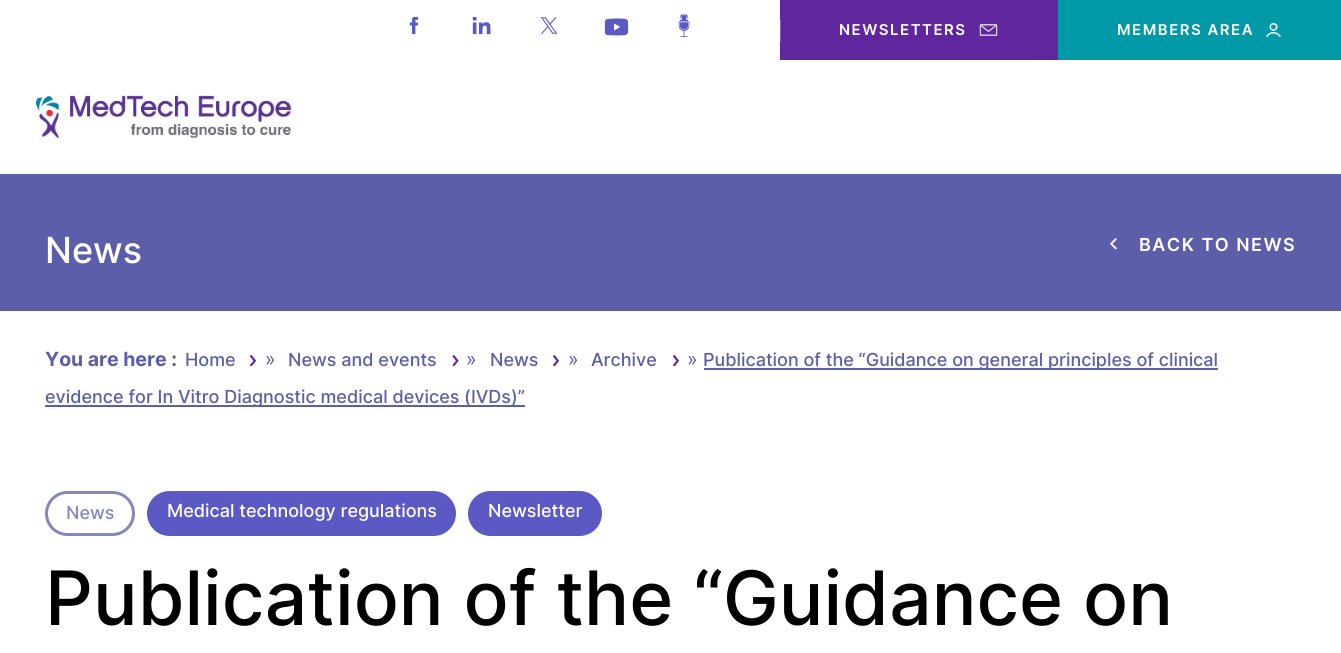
import math
import cairo

surface = cairo.ImageSurface(cairo.FORMAT_RGB24, 1341, 653)
ctx = cairo.Context(surface)
options = cairo.FontOptions()
options.set_hint_metrics(cairo.HINT_METRICS_OFF)
options.set_hint_style(cairo.HINT_STYLE_NONE)
ctx.set_font_options(options)
ctx.set_miter_limit(4)


def spaced_text(x, y, s, letter, word):
    ctx.move_to(x, y)
    for ch in s:
        ctx.show_text(ch)
        ctx.rel_move_to(letter + word * (ch == ' '), 0)


def round_rect(x, y, w, h, r):
    ctx.new_sub_path()
    for i, (u, v) in enumerate([(x + w - r, y + h - r), (x + r, y + h - r), (x + r, y + r), (x + w - r, y + r)]):
        ctx.arc(u, v, r, i * math.pi / 2, (i + 1) * math.pi / 2)
    ctx.close_path()


def picture(path, x, y, w, h):
    ctx.save()
    ctx.set_source_surface(cairo.ImageSurface.create_from_png(path), x, y)
    ctx.rectangle(x, y, w, h)
    ctx.fill()
    ctx.restore()


ctx.set_source_rgb(1, 1, 1)
ctx.paint()
picture("img1.png", 409, 16, 10, 19)
picture("img2.png", 472, 16, 19, 19)
picture("img3.png", 540, 17, 18, 17)
picture("img4.png", 604, 18, 25, 18)
picture("img5.png", 678, 13, 12, 24)
ctx.set_source_rgb(0.376, 0.149, 0.62)
ctx.rectangle(780, 0, 278, 60)
ctx.fill()
ctx.set_source_rgb(0.533, 0.361, 0.714)
ctx.rectangle(780, 20, 1, 22)
ctx.fill()
ctx.select_font_face("Inter SemiBold")
ctx.set_font_size(15)
ctx.set_source_rgb(1, 1, 1)
spaced_text(839, 35, "NEWSLETTERS", 1.5, 0)
picture("img6.png", 979, 24, 19, 12)
ctx.set_source_rgb(0, 0.6, 0.659)
ctx.rectangle(1058, 0, 283, 60)
ctx.fill()
ctx.set_source_rgb(1, 1, 1)
spaced_text(1117, 35, "MEMBERS AREA", 1.5, 0)
picture("img7.png", 1266, 23, 15, 14)
picture("img8.png", 36, 95, 255, 44)
ctx.set_source_rgb(0.365, 0.369, 0.663)
ctx.rectangle(0, 174, 1341, 137)
ctx.fill()
ctx.select_font_face("Inter Medium")
ctx.set_font_size(36)
ctx.set_source_rgb(1, 1, 1)
ctx.move_to(45, 263)
ctx.show_text("News")
picture("img9.png", 1110, 238, 7, 12)
ctx.select_font_face("Inter SemiBold")
ctx.set_font_size(18)
spaced_text(1139, 251, "BACK TO NEWS", 1.5, 0)
ctx.select_font_face("Inter", cairo.FONT_SLANT_NORMAL, cairo.FONT_WEIGHT_BOLD)
ctx.set_font_size(19.5)
ctx.set_source_rgb(0.365, 0.369, 0.663)
ctx.move_to(45, 366)
ctx.show_text("You are here :")
ctx.select_font_face("Inter Medium")
ctx.set_font_size(18)
ctx.move_to(185, 366)
ctx.show_text("Home")
picture("img10.png", 249, 354, 8, 12)
ctx.select_font_face("Inter")
ctx.set_font_size(19.5)
ctx.move_to(265, 366)
ctx.show_text("»")
ctx.select_font_face("Inter Medium")
ctx.set_font_size(18)
ctx.move_to(288, 366)
ctx.show_text("News and events")
picture("img11.png", 452, 354, 7, 12)
ctx.select_font_face("Inter")
ctx.set_font_size(19.5)
ctx.move_to(466, 366)
ctx.show_text("»")
ctx.select_font_face("Inter Medium")
ctx.set_font_size(18)
ctx.move_to(490, 366)
ctx.show_text("News")
picture("img10.png", 552, 354, 8, 12)
ctx.select_font_face("Inter")
ctx.set_font_size(19.5)
ctx.move_to(568, 366)
ctx.show_text("»")
ctx.select_font_face("Inter Medium")
ctx.set_font_size(18)
ctx.move_to(591, 366)
ctx.show_text("Archive")
picture("img10.png", 672, 354, 8, 12)
ctx.select_font_face("Inter")
ctx.set_font_size(19.5)
ctx.move_to(687, 366)
ctx.show_text("»")
ctx.rectangle(704, 368, 514, 2)
ctx.fill()
ctx.select_font_face("Inter Medium")
ctx.set_font_size(18)
ctx.move_to(703, 366)
ctx.show_text("Publication of the “Guidance on general principles of clinical")
ctx.rectangle(45, 405, 480, 2)
ctx.fill()
ctx.move_to(45, 403)
ctx.show_text("evidence for In Vitro Diagnostic medical devices (IVDs)”")
round_rect(46.5, 492.5, 87, 42, 21)
ctx.set_source_rgb(0.525, 0.525, 0.749)
ctx.set_line_width(3)
ctx.stroke()
ctx.move_to(66, 519)
ctx.show_text("News")
ctx.set_source_rgb(0.357, 0.353, 0.773)
round_rect(148, 492, 307, 43, 21.5)
ctx.fill_preserve()
ctx.set_line_width(2)
ctx.stroke()
ctx.set_source_rgb(1, 1, 1)
ctx.move_to(167, 517)
ctx.show_text("Medical technology regulations")
ctx.set_source_rgb(0.357, 0.353, 0.773)
round_rect(469, 492, 132, 43, 21.5)
ctx.fill_preserve()
ctx.stroke()
ctx.set_source_rgb(1, 1, 1)
ctx.move_to(488, 517)
ctx.show_text("Newsletter")
ctx.set_font_size(75)
ctx.set_source_rgb(0, 0, 0)
ctx.move_to(45, 625)
ctx.show_text("Publication of the “Guidance on")
surface.write_to_png("page.png")
